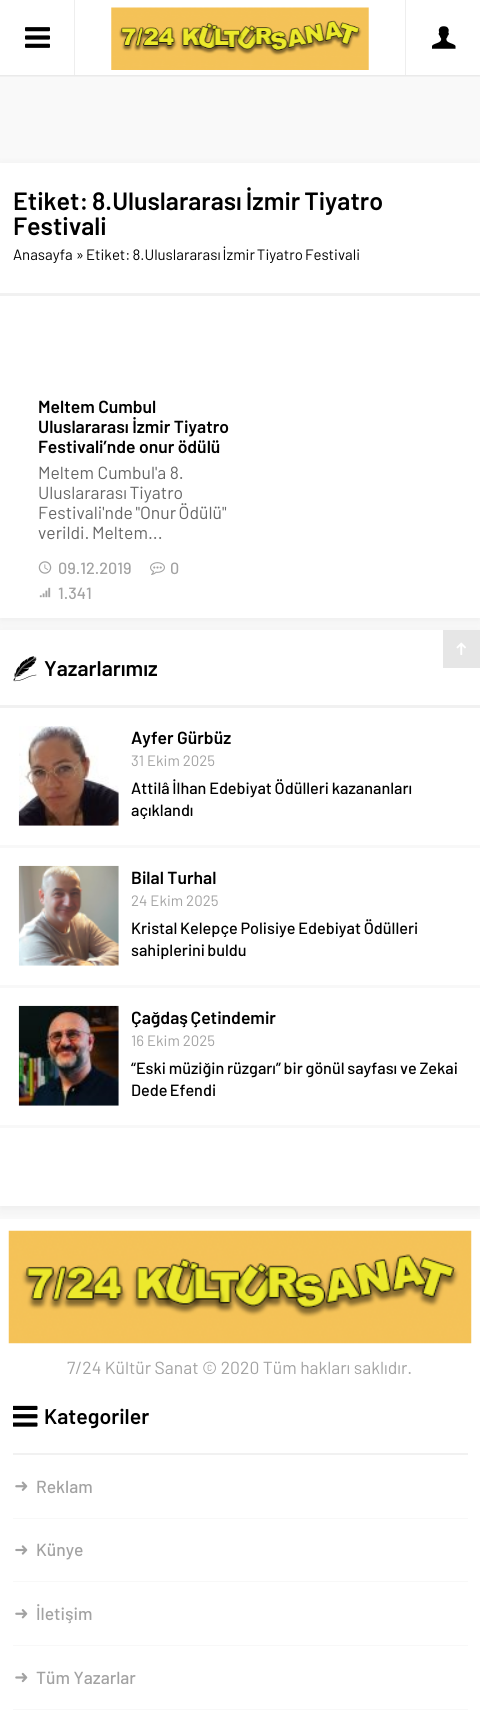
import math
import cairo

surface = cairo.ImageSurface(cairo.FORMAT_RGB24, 480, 1716)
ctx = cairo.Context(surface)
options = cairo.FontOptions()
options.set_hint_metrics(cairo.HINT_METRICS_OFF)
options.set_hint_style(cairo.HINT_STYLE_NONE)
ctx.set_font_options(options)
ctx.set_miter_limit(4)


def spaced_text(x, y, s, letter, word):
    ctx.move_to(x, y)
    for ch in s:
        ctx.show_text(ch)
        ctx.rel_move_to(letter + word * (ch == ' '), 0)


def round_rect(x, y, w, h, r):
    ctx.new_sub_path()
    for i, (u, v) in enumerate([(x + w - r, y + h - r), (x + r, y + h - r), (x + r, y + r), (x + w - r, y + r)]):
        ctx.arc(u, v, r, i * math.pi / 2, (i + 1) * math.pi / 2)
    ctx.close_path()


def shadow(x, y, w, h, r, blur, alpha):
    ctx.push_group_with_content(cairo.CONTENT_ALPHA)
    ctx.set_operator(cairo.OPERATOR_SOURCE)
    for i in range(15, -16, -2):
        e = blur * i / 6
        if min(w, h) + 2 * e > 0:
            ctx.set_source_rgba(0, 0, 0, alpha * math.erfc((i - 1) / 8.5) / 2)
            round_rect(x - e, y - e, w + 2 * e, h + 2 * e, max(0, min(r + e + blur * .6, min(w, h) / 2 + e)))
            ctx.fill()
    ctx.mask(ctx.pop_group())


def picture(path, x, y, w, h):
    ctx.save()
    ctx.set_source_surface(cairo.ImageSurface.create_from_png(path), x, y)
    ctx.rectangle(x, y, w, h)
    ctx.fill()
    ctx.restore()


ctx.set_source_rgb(0.973, 0.973, 0.973)
ctx.paint()
ctx.set_source_rgb(1, 1, 1)
ctx.rectangle(0, 0, 480, 75)
ctx.fill()
ctx.save()
ctx.rectangle(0, 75, 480, 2)
ctx.clip()
ctx.set_source_rgb(0, 0, 0)
shadow(0, 0, 480, 75, 0, 2, 0.15)
ctx.restore()
picture("img1.png", 111, 7, 258, 63)
ctx.set_source_rgb(0.933, 0.933, 0.933)
ctx.rectangle(74, 0, 1, 75)
ctx.fill()
picture("img2.png", 25, 27, 25, 21)
ctx.rectangle(405, 0, 1, 75)
ctx.fill()
picture("img3.png", 432, 26, 24, 23)
ctx.set_source_rgb(0, 0, 0)
shadow(0, 165, 480, 455, 0, 5, 0.05)
ctx.set_source_rgb(1, 1, 1)
ctx.rectangle(0, 163, 480, 455)
ctx.fill()
ctx.select_font_face("Barlow SemiBold")
ctx.set_font_size(25)
ctx.set_source_rgb(0, 0, 0)
ctx.move_to(13, 210)
ctx.show_text("Etiket:")
spaced_text(92, 210, "8.Uluslararası İzmir Tiyatro", 0, -1)
ctx.move_to(13, 235)
ctx.show_text("Festivali")
ctx.select_font_face("Barlow")
ctx.set_font_size(15)
ctx.move_to(13, 260)
ctx.show_text("Anasayfa »")
spaced_text(86, 260, "Etiket: 8.Uluslararası İzmir Tiyatro Festivali", 0, -1)
ctx.set_source_rgb(0.945, 0.945, 0.945)
ctx.rectangle(0, 293, 480, 3)
ctx.fill()
ctx.select_font_face("Barlow SemiBold")
ctx.set_font_size(17.5)
ctx.set_source_rgb(0, 0, 0)
ctx.move_to(38, 413)
ctx.show_text("Meltem Cumbul")
ctx.move_to(38, 433)
ctx.show_text("Uluslararası İzmir Tiyatro")
ctx.move_to(38, 453)
ctx.show_text("Festivali’nde onur ödülü")
ctx.select_font_face("Barlow")
ctx.set_source_rgb(0.4, 0.4, 0.4)
ctx.move_to(38, 479)
ctx.show_text("Meltem Cumbul'a 8.")
spaced_text(38, 499, "Uluslararası Tiyatro", 0, -1)
spaced_text(38, 519, "Festivali'nde \"Onur Ödülü\"", 0, -1)
spaced_text(38, 539, "verildi. Meltem...", 0, -1)
picture("img4.png", 38, 561, 14, 13)
ctx.select_font_face("Barlow Medium")
ctx.set_font_size(16.25)
ctx.set_source_rgb(0.635, 0.635, 0.635)
ctx.move_to(58, 574)
ctx.show_text("09.12.2019")
picture("img5.png", 150, 562, 15, 13)
ctx.move_to(170, 574)
ctx.show_text("0")
picture("img6.png", 39, 587, 12, 11)
ctx.move_to(58, 599)
ctx.show_text("1.341")
ctx.set_source_rgb(1, 1, 1)
ctx.rectangle(0, 1219, 480, 497)
ctx.fill()
ctx.set_source_rgb(0, 0, 0)
shadow(0, 633, 480, 576, 0, 5, 0.05)
ctx.set_source_rgb(1, 1, 1)
ctx.rectangle(0, 630, 480, 576)
ctx.fill()
picture("img7.png", 13, 656, 24, 26)
ctx.select_font_face("Barlow SemiBold")
ctx.set_font_size(21.25)
ctx.set_source_rgb(0, 0, 0)
ctx.move_to(44, 676)
ctx.show_text("Yazarlarımız")
ctx.set_source_rgb(0.902, 0.902, 0.902)
ctx.rectangle(443, 630, 37, 38)
ctx.fill()
picture("img8.png", 456, 642, 10, 13)
ctx.set_source_rgb(0.945, 0.945, 0.945)
ctx.rectangle(0, 705, 480, 3)
ctx.fill()
ctx.set_source_rgb(0.969, 0.969, 0.969)
ctx.rectangle(0, 845, 480, 3)
ctx.fill()
picture("img9.png", 18, 726, 101, 100)
ctx.set_font_size(17.5)
ctx.set_source_rgb(0, 0, 0)
ctx.move_to(131, 744)
ctx.show_text("Ayfer Gürbüz")
ctx.select_font_face("Barlow")
ctx.set_font_size(15)
ctx.set_source_rgb(0.635, 0.635, 0.635)
ctx.move_to(131, 766)
ctx.show_text("31 Ekim 2025")
ctx.select_font_face("Barlow Medium")
ctx.set_font_size(16.25)
ctx.set_source_rgb(0, 0, 0)
spaced_text(131, 794, "Attilâ İlhan Edebiyat Ödülleri kazananları", 0, -0.5)
ctx.move_to(131, 816)
ctx.show_text("açıklandı")
ctx.set_source_rgb(0.969, 0.969, 0.969)
ctx.rectangle(0, 985, 480, 3)
ctx.fill()
picture("img10.png", 18, 865, 101, 101)
ctx.select_font_face("Barlow SemiBold")
ctx.set_font_size(17.5)
ctx.set_source_rgb(0, 0, 0)
ctx.move_to(131, 884)
ctx.show_text("Bilal Turhal")
ctx.select_font_face("Barlow")
ctx.set_font_size(15)
ctx.set_source_rgb(0.635, 0.635, 0.635)
ctx.move_to(131, 906)
ctx.show_text("24 Ekim 2025")
ctx.select_font_face("Barlow Medium")
ctx.set_font_size(16.25)
ctx.set_source_rgb(0, 0, 0)
spaced_text(131, 934, "Kristal Kelepçe Polisiye Edebiyat Ödülleri", 0, -0.5)
spaced_text(131, 956, "sahiplerini buldu", 0, -1)
picture("img11.png", 18, 1005, 101, 101)
ctx.select_font_face("Barlow SemiBold")
ctx.set_font_size(17.5)
spaced_text(131, 1024, "Çağdaş Çetindemir", 0, -1)
ctx.select_font_face("Barlow")
ctx.set_font_size(15)
ctx.set_source_rgb(0.635, 0.635, 0.635)
ctx.move_to(131, 1046)
ctx.show_text("16 Ekim 2025")
ctx.select_font_face("Barlow Medium")
ctx.set_font_size(16.25)
ctx.set_source_rgb(0, 0, 0)
spaced_text(131, 1074, "“Eski müziğin rüzgarı” bir gönül sayfası ve Zekai", 0, -0.5)
spaced_text(131, 1096, "Dede Efendi", 0, -1)
ctx.set_source_rgb(0.969, 0.969, 0.969)
ctx.rectangle(0, 1125, 480, 3)
ctx.fill()
picture("img12.png", 8, 1230, 464, 114)
ctx.select_font_face("Barlow")
ctx.set_font_size(17.5)
ctx.set_source_rgb(0.635, 0.635, 0.635)
ctx.move_to(67, 1374)
ctx.show_text("7/24 Kültür Sanat © 2020 Tüm hakları saklıdır.")
picture("img13.png", 13, 1405, 25, 22)
ctx.select_font_face("Barlow SemiBold")
ctx.set_font_size(21.25)
ctx.set_source_rgb(0, 0, 0)
ctx.move_to(44, 1424)
ctx.show_text("Kategoriler")
ctx.set_source_rgb(0.945, 0.945, 0.945)
ctx.rectangle(13, 1453, 455, 2)
ctx.fill()
ctx.set_source_rgb(0.969, 0.969, 0.969)
ctx.rectangle(13, 1518, 455, 1)
ctx.fill()
picture("img14.png", 15, 1481, 13, 10)
ctx.select_font_face("Barlow Medium")
ctx.set_font_size(17.5)
ctx.set_source_rgb(0.635, 0.635, 0.635)
ctx.move_to(36, 1493)
ctx.show_text("Reklam")
ctx.set_source_rgb(0.969, 0.969, 0.969)
ctx.rectangle(13, 1581, 455, 1)
ctx.fill()
picture("img15.png", 15, 1545, 13, 10)
ctx.set_source_rgb(0.635, 0.635, 0.635)
ctx.move_to(36, 1556)
ctx.show_text("Künye")
ctx.set_source_rgb(0.969, 0.969, 0.969)
ctx.rectangle(13, 1645, 455, 1)
ctx.fill()
picture("img16.png", 15, 1609, 13, 10)
ctx.set_source_rgb(0.635, 0.635, 0.635)
ctx.move_to(36, 1620)
ctx.show_text("İletişim")
ctx.set_source_rgb(0.969, 0.969, 0.969)
ctx.rectangle(13, 1709, 455, 1)
ctx.fill()
picture("img17.png", 15, 1672, 13, 11)
ctx.set_source_rgb(0.635, 0.635, 0.635)
ctx.move_to(36, 1684)
ctx.show_text("Tüm Yazarlar")
surface.write_to_png("page.png")
